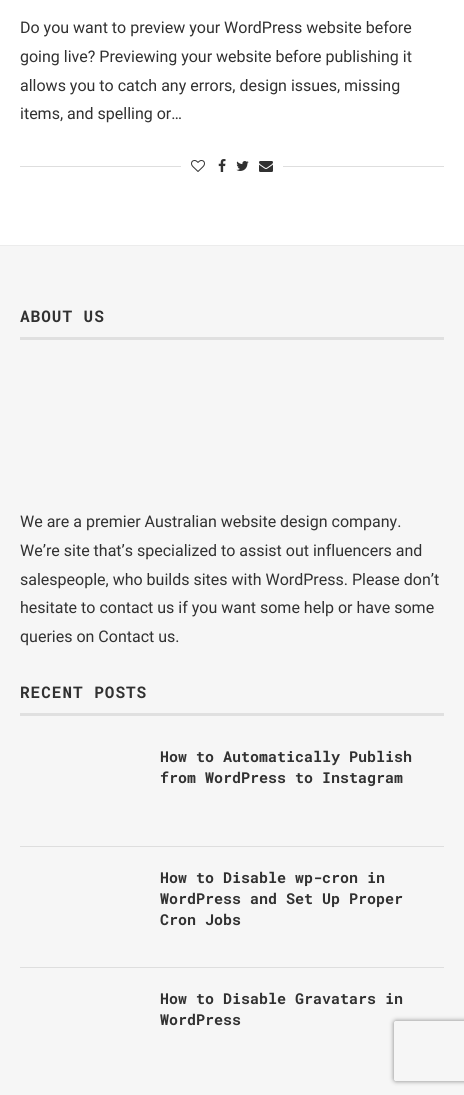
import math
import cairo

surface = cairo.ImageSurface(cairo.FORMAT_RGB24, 464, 1095)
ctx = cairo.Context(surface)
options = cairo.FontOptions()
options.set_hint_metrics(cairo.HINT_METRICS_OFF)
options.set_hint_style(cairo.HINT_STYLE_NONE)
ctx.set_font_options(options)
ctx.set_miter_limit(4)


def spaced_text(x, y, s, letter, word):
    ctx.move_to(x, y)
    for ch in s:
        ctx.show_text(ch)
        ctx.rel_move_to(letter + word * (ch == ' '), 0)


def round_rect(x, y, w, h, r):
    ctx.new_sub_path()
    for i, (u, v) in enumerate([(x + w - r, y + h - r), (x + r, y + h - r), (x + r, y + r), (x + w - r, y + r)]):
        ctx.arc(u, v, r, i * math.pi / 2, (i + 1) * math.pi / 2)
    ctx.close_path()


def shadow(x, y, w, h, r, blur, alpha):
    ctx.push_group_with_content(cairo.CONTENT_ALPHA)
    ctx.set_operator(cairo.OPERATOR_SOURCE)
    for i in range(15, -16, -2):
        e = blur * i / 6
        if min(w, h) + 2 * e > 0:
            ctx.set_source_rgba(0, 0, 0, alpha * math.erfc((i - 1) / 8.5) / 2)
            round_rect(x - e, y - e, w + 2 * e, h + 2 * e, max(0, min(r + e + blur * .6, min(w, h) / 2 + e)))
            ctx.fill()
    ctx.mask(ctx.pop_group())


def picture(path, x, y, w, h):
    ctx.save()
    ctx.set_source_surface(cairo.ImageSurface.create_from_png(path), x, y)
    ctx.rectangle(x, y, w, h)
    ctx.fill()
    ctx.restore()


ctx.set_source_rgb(1, 1, 1)
ctx.paint()
ctx.select_font_face("Roboto")
ctx.set_font_size(16)
ctx.set_source_rgb(0.192, 0.192, 0.192)
ctx.move_to(20, 33)
ctx.show_text("Do you want to preview your WordPress website before")
ctx.move_to(20, 62)
ctx.show_text("going live? Previewing your website before publishing it")
ctx.move_to(20, 91)
ctx.show_text("allows you to catch any errors, design issues, missing")
ctx.move_to(20, 119)
ctx.show_text("items, and spelling or…")
ctx.set_source_rgb(0.871, 0.871, 0.871)
ctx.rectangle(20, 166, 424, 1)
ctx.fill()
ctx.set_source_rgb(1, 1, 1)
ctx.rectangle(181, 166, 102, 1)
ctx.fill()
picture("img1.png", 191, 160, 14, 12)
picture("img2.png", 218, 159, 8, 13)
picture("img3.png", 236, 161, 13, 10)
picture("img4.png", 259, 161, 14, 11)
ctx.set_source_rgb(0.961, 0.961, 0.961)
ctx.rectangle(0, 246, 464, 849)
ctx.fill()
ctx.set_source_rgb(0.925, 0.925, 0.925)
ctx.rectangle(0, 245, 464, 1)
ctx.fill()
ctx.set_source_rgb(0.878, 0.878, 0.878)
ctx.rectangle(20, 337, 424, 3)
ctx.fill()
ctx.select_font_face("Roboto Mono", cairo.FONT_SLANT_NORMAL, cairo.FONT_WEIGHT_BOLD)
ctx.set_source_rgb(0.192, 0.192, 0.192)
spaced_text(20, 322, "ABOUT US", 1, 0)
ctx.select_font_face("Roboto")
ctx.move_to(20, 527)
ctx.show_text("We are a premier Australian website design company.")
ctx.move_to(20, 556)
ctx.show_text("We’re site that’s specialized to assist out influencers and")
ctx.move_to(20, 585)
ctx.show_text("salespeople, who builds sites with WordPress. Please don’t")
ctx.move_to(20, 613)
ctx.show_text("hesitate to contact us if you want some help or have some")
ctx.move_to(20, 642)
ctx.show_text("queries on Contact us.")
ctx.set_source_rgb(0.878, 0.878, 0.878)
ctx.rectangle(20, 713, 424, 3)
ctx.fill()
ctx.select_font_face("Roboto Mono", cairo.FONT_SLANT_NORMAL, cairo.FONT_WEIGHT_BOLD)
ctx.set_source_rgb(0.192, 0.192, 0.192)
spaced_text(20, 698, "RECENT POSTS", 1, 0)
ctx.set_source_rgb(0.871, 0.871, 0.871)
ctx.rectangle(20, 846, 424, 1)
ctx.fill()
ctx.set_font_size(15)
ctx.set_source_rgb(0.192, 0.192, 0.192)
ctx.move_to(160, 762)
ctx.show_text("How to Automatically Publish")
ctx.move_to(160, 783)
ctx.show_text("from WordPress to Instagram")
ctx.set_source_rgb(0.871, 0.871, 0.871)
ctx.rectangle(20, 967, 424, 1)
ctx.fill()
ctx.set_source_rgb(0.192, 0.192, 0.192)
ctx.move_to(160, 883)
ctx.show_text("How to Disable wp-cron in")
ctx.move_to(160, 904)
ctx.show_text("WordPress and Set Up Proper")
ctx.move_to(160, 925)
ctx.show_text("Cron Jobs")
ctx.move_to(160, 1004)
ctx.show_text("How to Disable Gravatars in")
ctx.move_to(160, 1025)
ctx.show_text("WordPress")
ctx.save()
ctx.set_fill_rule(cairo.FILL_RULE_EVEN_ODD)
ctx.new_path()
ctx.move_to(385, 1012)
ctx.line_to(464, 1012)
ctx.line_to(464, 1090)
ctx.line_to(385, 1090)
ctx.close_path()
ctx.move_to(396, 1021)
ctx.line_to(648, 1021)
ctx.curve_to(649, 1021, 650, 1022, 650, 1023)
ctx.line_to(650, 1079)
ctx.curve_to(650, 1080, 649, 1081, 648, 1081)
ctx.line_to(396, 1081)
ctx.curve_to(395, 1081, 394, 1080, 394, 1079)
ctx.line_to(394, 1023)
ctx.curve_to(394, 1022, 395, 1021, 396, 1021)
ctx.close_path()
ctx.clip()
ctx.set_source_rgb(0.502, 0.502, 0.502)
shadow(394, 1021, 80, 60, 2, 2.5, 1)
ctx.restore()
surface.write_to_png("page.png")
